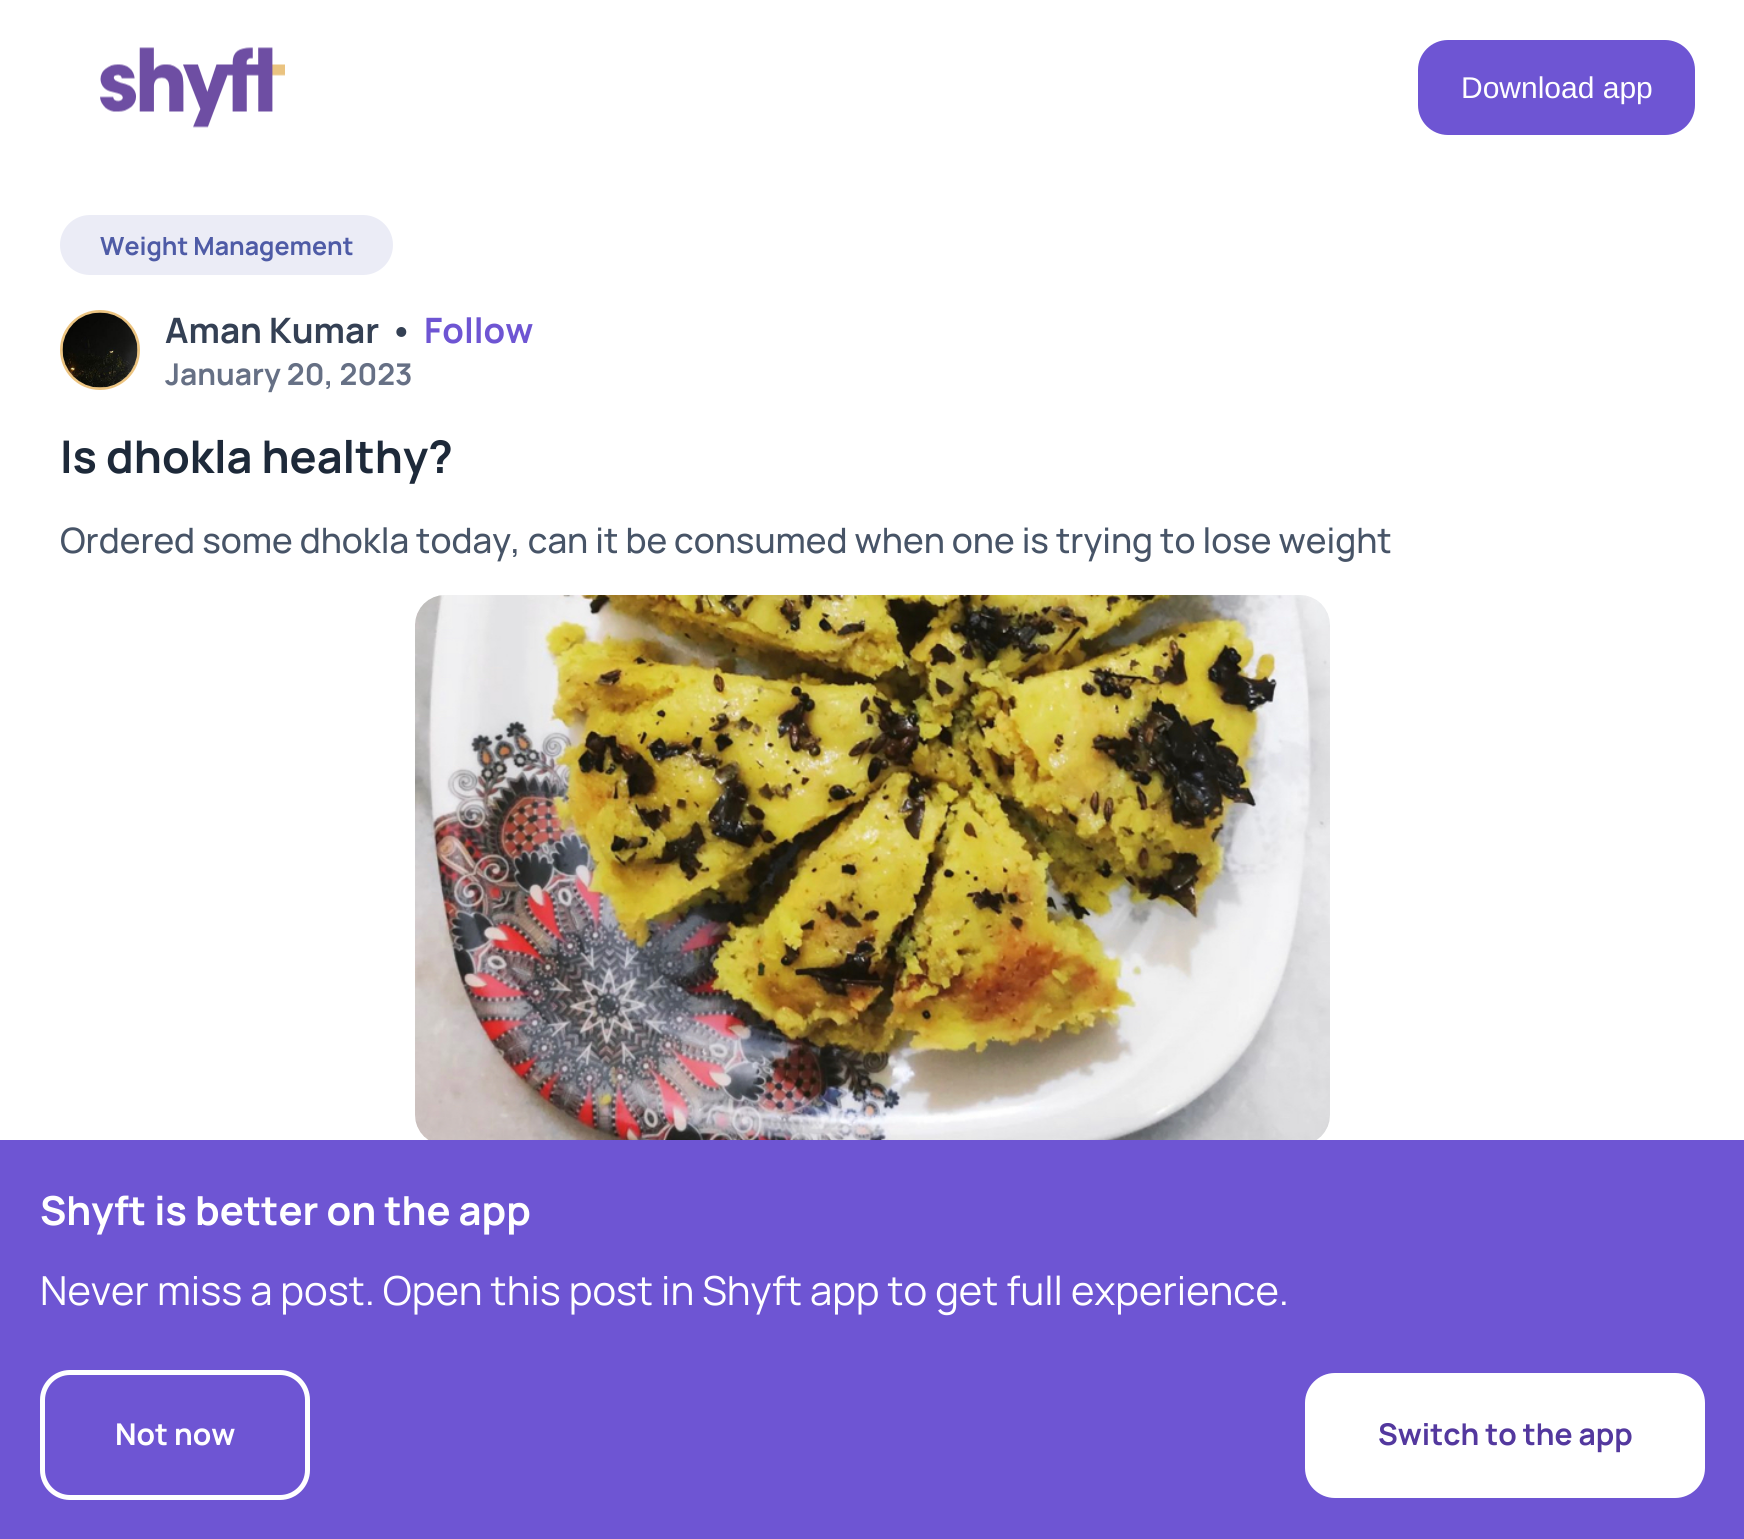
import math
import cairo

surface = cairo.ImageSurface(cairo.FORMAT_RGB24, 1744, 1539)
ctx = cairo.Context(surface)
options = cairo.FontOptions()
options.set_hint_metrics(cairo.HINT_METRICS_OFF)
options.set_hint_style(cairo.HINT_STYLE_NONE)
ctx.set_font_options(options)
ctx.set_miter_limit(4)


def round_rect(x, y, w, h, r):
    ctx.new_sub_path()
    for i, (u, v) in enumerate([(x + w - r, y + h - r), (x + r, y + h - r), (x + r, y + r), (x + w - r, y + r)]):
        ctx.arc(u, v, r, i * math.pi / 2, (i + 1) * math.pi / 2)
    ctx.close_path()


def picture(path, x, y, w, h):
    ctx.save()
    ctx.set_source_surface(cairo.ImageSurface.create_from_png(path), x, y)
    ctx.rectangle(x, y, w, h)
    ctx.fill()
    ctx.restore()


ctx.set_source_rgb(1, 1, 1)
ctx.paint()
picture("img1.png", 100, 47, 185, 81)
ctx.set_source_rgb(0.431, 0.333, 0.827)
round_rect(1418, 40, 277, 95, 30)
ctx.fill()
ctx.select_font_face("Liberation Sans")
ctx.set_font_size(30)
ctx.set_source_rgb(1, 1, 1)
ctx.move_to(1461, 98)
ctx.show_text("Download app")
ctx.set_source_rgb(0.918, 0.925, 0.961)
round_rect(60, 215, 333, 60, 30)
ctx.fill()
ctx.select_font_face("Manrope", cairo.FONT_SLANT_NORMAL, cairo.FONT_WEIGHT_BOLD)
ctx.set_font_size(25)
ctx.set_source_rgb(0.306, 0.357, 0.651)
ctx.move_to(100, 255)
ctx.show_text("Weight Management")
ctx.new_path()
ctx.arc(100, 350, 38.5, 0, 2 * math.pi)
ctx.set_source_rgb(0.922, 0.769, 0.506)
ctx.set_line_width(3)
ctx.stroke()
picture("img2.png", 62, 312, 76, 76)
ctx.set_font_size(35)
ctx.set_source_rgb(0.204, 0.251, 0.329)
ctx.move_to(165, 343)
ctx.show_text("Aman Kumar")
ctx.move_to(389, 343)
ctx.show_text("•")
ctx.set_source_rgb(0.431, 0.333, 0.827)
ctx.move_to(424, 343)
ctx.show_text("Follow")
ctx.set_font_size(30)
ctx.set_source_rgb(0.4, 0.439, 0.522)
ctx.move_to(165, 385)
ctx.show_text("January 20, 2023")
ctx.set_font_size(45)
ctx.set_source_rgb(0.114, 0.161, 0.224)
ctx.move_to(60, 473)
ctx.show_text("Is dhokla healthy?")
ctx.select_font_face("Manrope Medium")
ctx.set_font_size(35)
ctx.set_source_rgb(0.278, 0.329, 0.404)
ctx.move_to(60, 553)
ctx.show_text("Ordered some dhokla today, can it be consumed when one is trying to lose weight")
picture("img3.png", 415, 595, 915, 545)
ctx.set_source_rgb(0.431, 0.333, 0.827)
ctx.rectangle(0, 1140, 1744, 399)
ctx.fill()
ctx.select_font_face("Manrope", cairo.FONT_SLANT_NORMAL, cairo.FONT_WEIGHT_BOLD)
ctx.set_font_size(40)
ctx.set_source_rgb(1, 1, 1)
ctx.move_to(40, 1225)
ctx.show_text("Shyft is better on the app")
ctx.select_font_face("Manrope")
ctx.move_to(40, 1305)
ctx.show_text("Never miss a post. Open this post in Shyft app to get full experience.")
round_rect(42.5, 1372.5, 265, 125, 27.5)
ctx.set_line_width(5)
ctx.stroke()
ctx.select_font_face("Manrope", cairo.FONT_SLANT_NORMAL, cairo.FONT_WEIGHT_BOLD)
ctx.set_font_size(30)
ctx.move_to(115, 1445)
ctx.show_text("Not now")
round_rect(1305, 1373, 400, 125, 30)
ctx.fill()
ctx.set_source_rgb(0.325, 0.22, 0.62)
ctx.move_to(1378, 1445)
ctx.show_text("Switch to the app")
surface.write_to_png("page.png")
